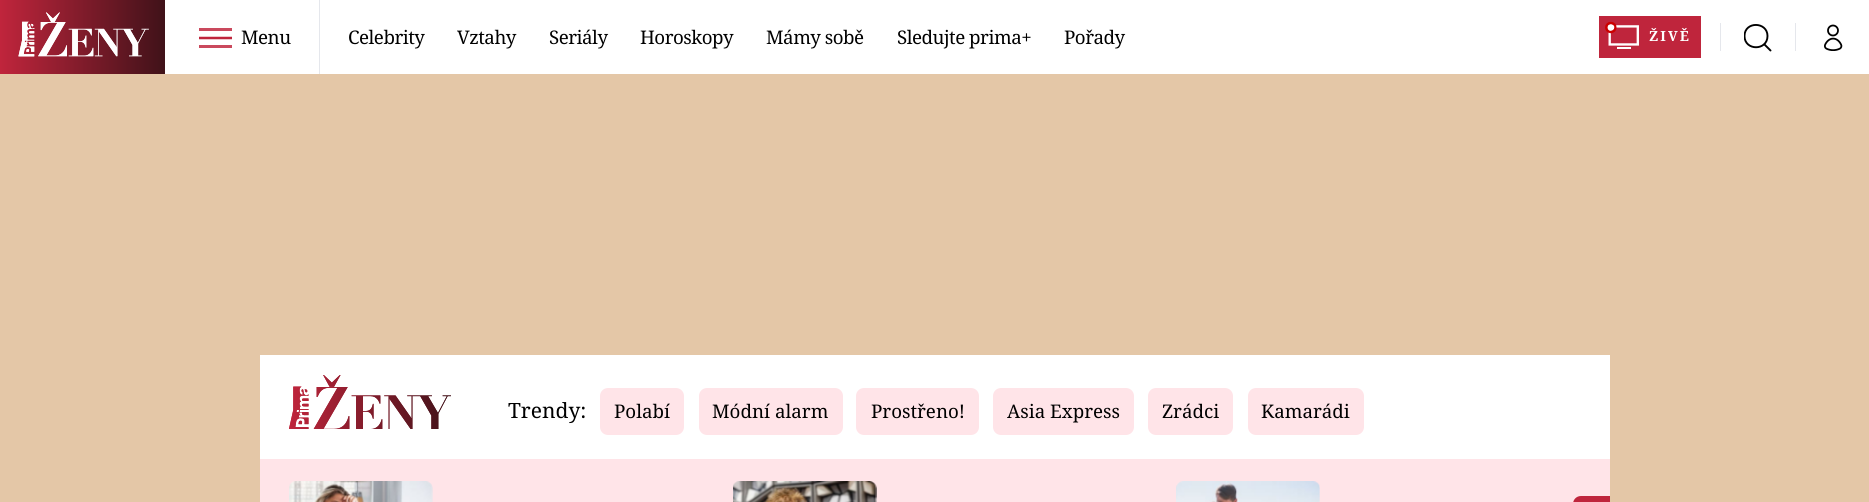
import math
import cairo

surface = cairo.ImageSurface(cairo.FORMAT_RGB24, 1869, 502)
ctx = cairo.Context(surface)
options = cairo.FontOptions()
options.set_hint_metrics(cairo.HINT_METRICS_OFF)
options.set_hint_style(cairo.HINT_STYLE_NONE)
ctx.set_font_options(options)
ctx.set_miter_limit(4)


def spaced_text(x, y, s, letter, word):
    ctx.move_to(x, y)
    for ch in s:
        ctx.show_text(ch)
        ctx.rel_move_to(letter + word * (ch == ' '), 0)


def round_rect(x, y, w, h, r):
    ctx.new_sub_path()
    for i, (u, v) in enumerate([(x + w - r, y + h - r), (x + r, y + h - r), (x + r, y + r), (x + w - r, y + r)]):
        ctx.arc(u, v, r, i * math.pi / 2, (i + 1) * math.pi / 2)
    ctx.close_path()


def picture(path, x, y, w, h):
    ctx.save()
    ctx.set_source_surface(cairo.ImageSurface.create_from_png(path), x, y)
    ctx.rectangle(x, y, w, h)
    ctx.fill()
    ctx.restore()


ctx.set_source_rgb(0.894, 0.78, 0.655)
ctx.paint()
ctx.set_source_rgb(1, 1, 1)
ctx.rectangle(165, 0, 1704, 74)
ctx.fill()
picture("img1.png", 0, 0, 165, 74)
ctx.set_source_rgb(0.898, 0.906, 0.922)
ctx.rectangle(319, 0, 1, 74)
ctx.fill()
ctx.set_source_rgb(0.792, 0.286, 0.365)
ctx.rectangle(199, 28, 33, 3)
ctx.fill()
ctx.new_path()
ctx.move_to(199, 38)
ctx.line_to(232, 38)
ctx.set_source_rgb(0.749, 0.145, 0.235)
ctx.set_line_width(2.5)
ctx.stroke()
ctx.set_source_rgb(0.792, 0.286, 0.365)
ctx.rectangle(199, 45, 33, 3)
ctx.fill()
ctx.select_font_face("Noto Serif")
ctx.set_font_size(18.75)
ctx.set_source_rgb(0, 0, 0)
spaced_text(241, 44, "Menu", -0.5, 0)
spaced_text(348, 44, "Celebrity", -0.5, 0)
spaced_text(457, 44, "Vztahy", -0.5, 0)
spaced_text(549, 44, "Seriály", -0.5, 0)
spaced_text(640, 44, "Horoskopy", -0.5, 0)
spaced_text(766, 44, "Mámy sobě", -0.5, 0)
spaced_text(897, 44, "Sledujte prima+", -0.5, 0)
spaced_text(1064, 44, "Pořady", -0.5, 0)
ctx.set_source_rgb(0.749, 0.145, 0.235)
ctx.rectangle(1599, 16, 102, 42)
ctx.fill()
picture("img2.png", 1605, 21, 34, 28)
ctx.select_font_face("Noto Serif", cairo.FONT_SLANT_NORMAL, cairo.FONT_WEIGHT_BOLD)
ctx.set_font_size(14)
ctx.set_source_rgb(1, 1, 1)
spaced_text(1649, 41, "ŽIVĚ", 2, 0)
ctx.set_source_rgb(0.898, 0.906, 0.922)
ctx.rectangle(1720, 23, 1, 28)
ctx.fill()
ctx.save()
ctx.rectangle(1744, 24, 29, 27)
ctx.clip()
ctx.new_path()
ctx.move_to(1767.5, 36)
ctx.curve_to(1767.5, 51, 1744.5, 51, 1744.5, 36)
ctx.curve_to(1744.5, 21, 1767.5, 21.5, 1767.5, 36)
ctx.close_path()
ctx.set_source_rgb(0, 0, 0)
ctx.set_line_width(1.9)
ctx.set_line_cap(cairo.LINE_CAP_ROUND)
ctx.set_line_join(cairo.LINE_JOIN_ROUND)
ctx.stroke()
ctx.restore()
ctx.new_path()
ctx.move_to(1770.5, 50.5)
ctx.line_to(1764.5, 44.5)
ctx.set_source_rgb(0, 0, 0)
ctx.set_line_width(1.9)
ctx.set_line_cap(cairo.LINE_CAP_ROUND)
ctx.set_line_join(cairo.LINE_JOIN_ROUND)
ctx.stroke()
ctx.set_source_rgb(0.898, 0.906, 0.922)
ctx.rectangle(1795, 23, 1, 28)
ctx.fill()
picture("img3.png", 1824, 24, 19, 27)
ctx.set_source_rgb(1, 1, 1)
ctx.rectangle(260, 355, 1350, 104)
ctx.fill()
picture("img4.png", 289, 375, 162, 54)
ctx.select_font_face("Noto Serif")
ctx.set_font_size(21)
ctx.set_source_rgb(0, 0, 0)
ctx.move_to(508, 418)
ctx.show_text("Trendy:")
ctx.set_source_rgb(1, 0.894, 0.91)
round_rect(600, 388, 84, 47, 8)
ctx.fill()
ctx.set_font_size(18.75)
ctx.set_source_rgb(0, 0, 0)
ctx.move_to(614, 418)
ctx.show_text("Polabí")
ctx.set_source_rgb(1, 0.894, 0.91)
round_rect(699, 388, 144, 47, 8)
ctx.fill()
ctx.set_source_rgb(0, 0, 0)
ctx.move_to(712, 418)
ctx.show_text("Módní alarm")
ctx.set_source_rgb(1, 0.894, 0.91)
round_rect(856, 388, 123, 47, 8)
ctx.fill()
ctx.set_source_rgb(0, 0, 0)
ctx.move_to(871, 418)
ctx.show_text("Prostřeno!")
ctx.set_source_rgb(1, 0.894, 0.91)
round_rect(993, 388, 141, 47, 8)
ctx.fill()
ctx.set_source_rgb(0, 0, 0)
ctx.move_to(1007, 418)
ctx.show_text("Asia Express")
ctx.set_source_rgb(1, 0.894, 0.91)
round_rect(1148, 388, 85, 47, 8)
ctx.fill()
ctx.set_source_rgb(0, 0, 0)
ctx.move_to(1162, 418)
ctx.show_text("Zrádci")
ctx.set_source_rgb(1, 0.894, 0.91)
round_rect(1248, 388, 116, 47, 8)
ctx.fill()
ctx.set_source_rgb(0, 0, 0)
ctx.move_to(1261, 418)
ctx.show_text("Kamarádi")
ctx.set_source_rgb(1, 0.894, 0.91)
ctx.rectangle(260, 459, 1350, 43)
ctx.fill()
picture("img5.png", 289, 481, 144, 21)
picture("img6.png", 733, 481, 144, 21)
picture("img7.png", 1176, 481, 144, 21)
ctx.set_source_rgb(0.749, 0.145, 0.235)
ctx.new_path()
ctx.move_to(1581, 496)
ctx.line_to(1610, 496)
ctx.line_to(1610, 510)
ctx.line_to(1581, 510)
ctx.curve_to(1576.5, 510, 1573, 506.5, 1573, 502)
ctx.line_to(1573, 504)
ctx.curve_to(1573, 499.5, 1576.5, 496, 1581, 496)
ctx.close_path()
ctx.fill()
surface.write_to_png("page.png")
